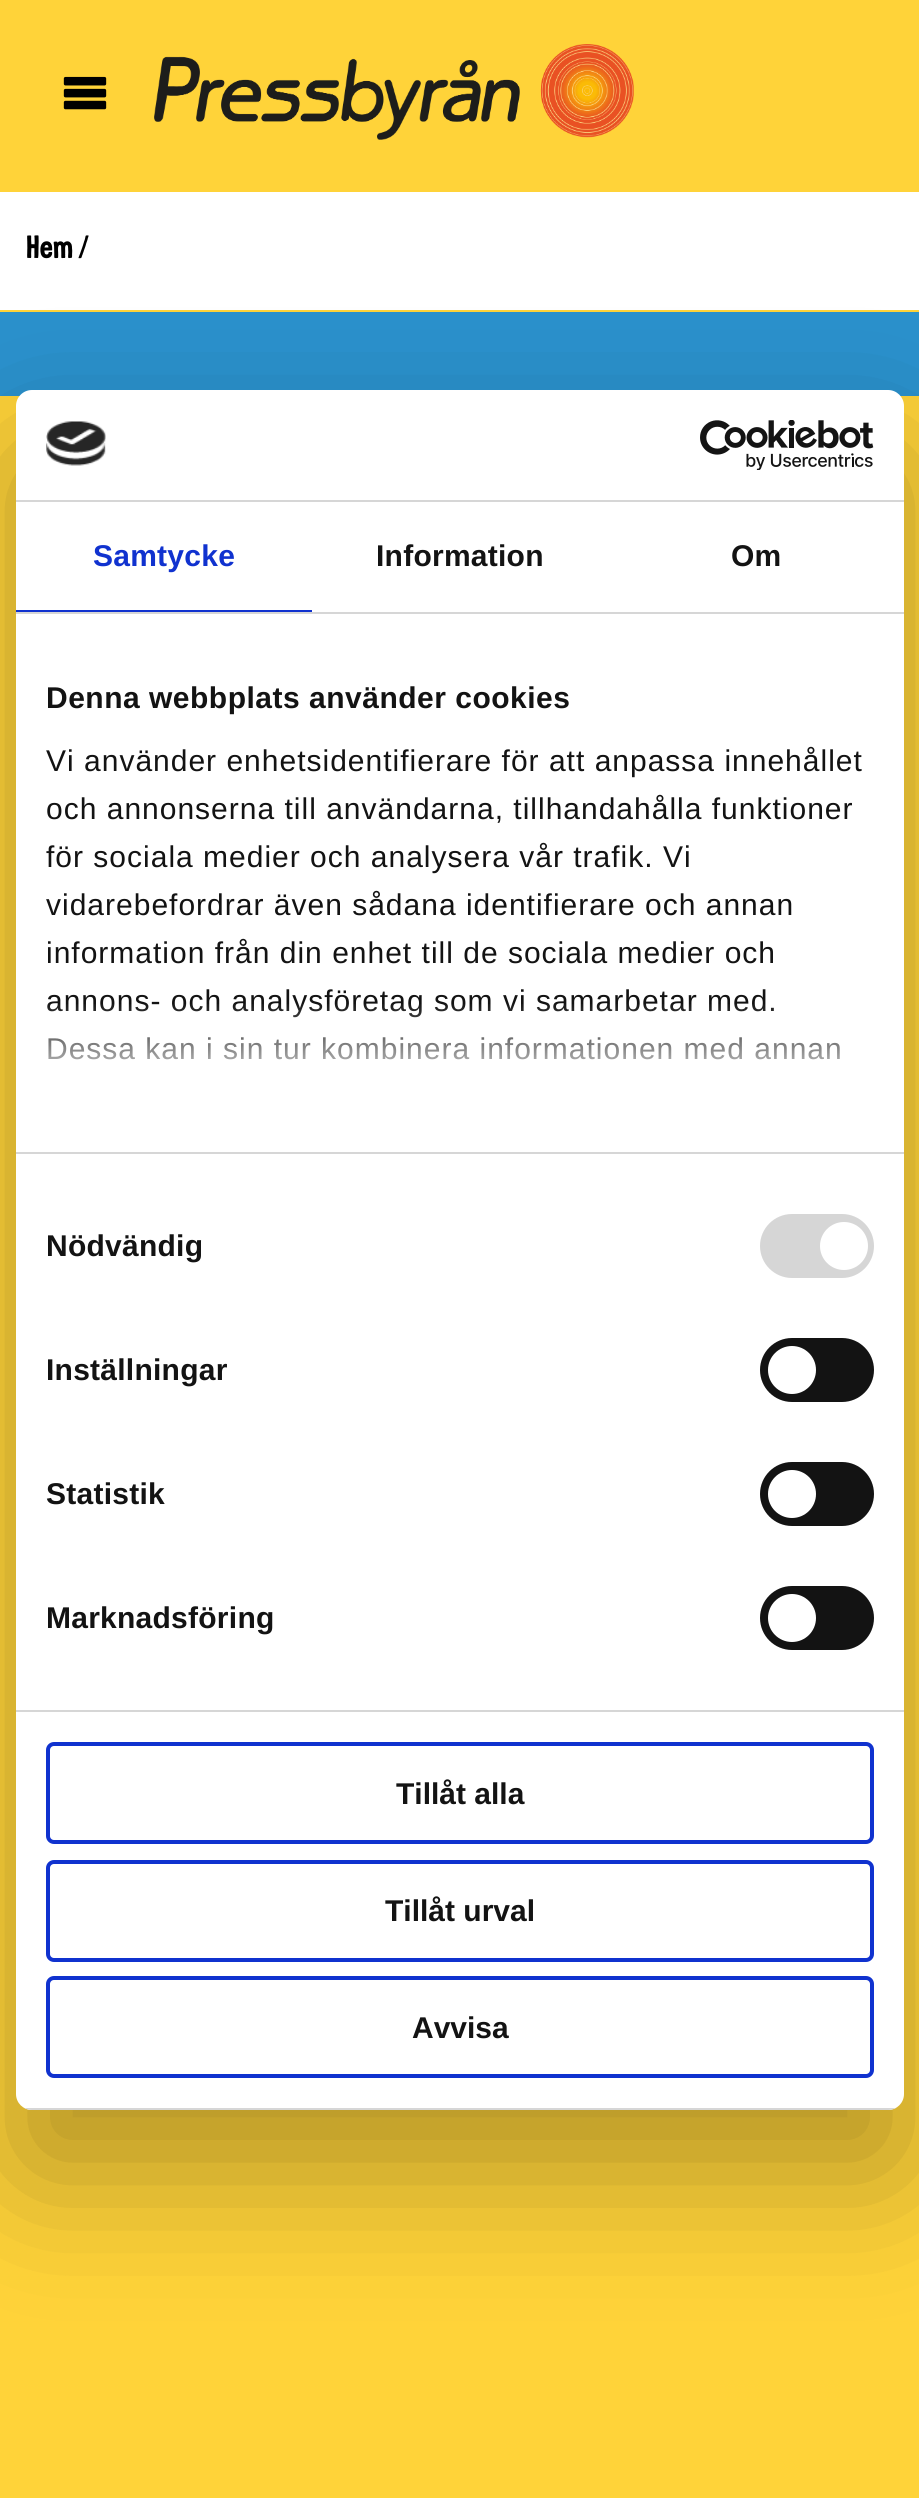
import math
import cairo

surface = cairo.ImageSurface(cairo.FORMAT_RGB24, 919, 2498)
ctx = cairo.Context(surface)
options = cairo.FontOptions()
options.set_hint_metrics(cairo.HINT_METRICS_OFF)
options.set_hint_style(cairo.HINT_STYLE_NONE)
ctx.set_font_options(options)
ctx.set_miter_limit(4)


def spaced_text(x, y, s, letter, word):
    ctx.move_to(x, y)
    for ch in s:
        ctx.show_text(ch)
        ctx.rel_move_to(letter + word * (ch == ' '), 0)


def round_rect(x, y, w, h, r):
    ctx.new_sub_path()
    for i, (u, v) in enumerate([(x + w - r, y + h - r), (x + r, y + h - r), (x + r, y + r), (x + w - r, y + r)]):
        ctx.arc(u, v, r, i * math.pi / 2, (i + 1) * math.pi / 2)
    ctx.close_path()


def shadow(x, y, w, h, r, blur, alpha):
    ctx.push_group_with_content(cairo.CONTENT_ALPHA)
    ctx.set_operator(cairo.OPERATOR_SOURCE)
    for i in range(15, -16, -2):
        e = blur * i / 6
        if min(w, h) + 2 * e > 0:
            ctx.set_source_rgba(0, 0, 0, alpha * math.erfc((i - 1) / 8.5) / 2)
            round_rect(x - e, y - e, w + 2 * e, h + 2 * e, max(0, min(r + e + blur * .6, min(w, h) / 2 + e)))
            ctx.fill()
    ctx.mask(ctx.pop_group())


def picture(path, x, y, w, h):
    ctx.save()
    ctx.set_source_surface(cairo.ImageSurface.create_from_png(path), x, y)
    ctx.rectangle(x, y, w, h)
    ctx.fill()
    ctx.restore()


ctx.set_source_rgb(1, 0.827, 0.224)
ctx.paint()
picture("img1.png", 63, 76, 44, 34)
picture("img2.png", 154, 44, 480, 96)
ctx.set_source_rgb(0.165, 0.569, 0.8)
ctx.rectangle(0, 312, 919, 84)
ctx.fill()
ctx.set_source_rgb(1, 1, 1)
ctx.rectangle(0, 192, 919, 118)
ctx.fill()
ctx.select_font_face("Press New", cairo.FONT_SLANT_NORMAL, cairo.FONT_WEIGHT_BOLD)
ctx.set_font_size(32)
ctx.set_source_rgb(0, 0, 0)
ctx.move_to(26, 258)
ctx.show_text("Hem")
ctx.select_font_face("Press New")
ctx.move_to(78, 258)
ctx.show_text("/")
ctx.set_source_rgb(0, 0, 0)
shadow(16, 454, 888, 1720, 16, 68, 0.3)
ctx.set_source_rgb(1, 1, 1)
round_rect(16, 390, 888, 1720, 16)
ctx.fill()
ctx.set_source_rgb(0.839, 0.839, 0.839)
ctx.rectangle(16, 500, 888, 2)
ctx.fill()
picture("img3.png", 46, 421, 60, 45)
picture("img4.png", 700, 420, 174, 50)
ctx.rectangle(16, 612, 888, 2)
ctx.fill()
ctx.set_source_rgb(0.063, 0.196, 0.812)
ctx.rectangle(16, 610, 296, 2)
ctx.fill()
ctx.select_font_face("Liberation Sans", cairo.FONT_SLANT_NORMAL, cairo.FONT_WEIGHT_BOLD)
ctx.set_font_size(30)
spaced_text(93, 566, "Samtycke", 0.25, 0)
ctx.set_source_rgb(0.078, 0.078, 0.078)
spaced_text(376, 566, "Information", 0.25, 0)
spaced_text(731, 566, "Om", 0.25, 0)
ctx.set_source_rgb(0.839, 0.839, 0.839)
ctx.rectangle(16, 1152, 888, 2)
ctx.fill()
ctx.set_source_rgb(0.078, 0.078, 0.078)
spaced_text(46, 708, "Denna webbplats använder cookies", 0.5, 0)
ctx.select_font_face("Liberation Sans")
spaced_text(46, 771, "Vi använder enhetsidentifierare för att anpassa innehållet", 1, 0)
spaced_text(46, 819, "och annonserna till användarna, tillhandahålla funktioner", 1, 0)
spaced_text(46, 867, "för sociala medier och analysera vår trafik. Vi", 1, 0)
spaced_text(46, 915, "vidarebefordrar även sådana identifierare och annan", 1, 0)
spaced_text(46, 963, "information från din enhet till de sociala medier och", 1, 0)
spaced_text(46, 1011, "annons- och analysföretag som vi samarbetar med.", 1, 0)
spaced_text(46, 1059, "Dessa kan i sin tur kombinera informationen med annan", 1, 0)
gradient = cairo.LinearGradient(447, 1152, 447, 1002)
gradient.add_color_stop_rgba(0, 1, 1, 1, 1)
gradient.add_color_stop_rgba(0.5, 1, 1, 1, 0.8)
gradient.add_color_stop_rgba(1, 1, 1, 1, 0)
ctx.set_source(gradient)
ctx.rectangle(47, 1004, 793, 56)
ctx.fill()
ctx.set_source_rgb(0.839, 0.839, 0.839)
ctx.rectangle(16, 1710, 888, 2)
ctx.fill()
ctx.select_font_face("Liberation Sans", cairo.FONT_SLANT_NORMAL, cairo.FONT_WEIGHT_BOLD)
ctx.set_source_rgb(0.078, 0.078, 0.078)
spaced_text(46, 1256, "Nödvändig", 0.25, 0)
ctx.set_source_rgb(0.839, 0.839, 0.839)
round_rect(760, 1214, 114, 64, 32)
ctx.fill()
ctx.set_source_rgb(1, 1, 1)
ctx.arc(844, 1246, 24, 0, 2 * math.pi)
ctx.fill()
ctx.set_source_rgb(0.078, 0.078, 0.078)
spaced_text(46, 1380, "Inställningar", 0.25, 0)
round_rect(760, 1338, 114, 64, 32)
ctx.fill()
ctx.set_source_rgb(1, 1, 1)
ctx.arc(792, 1370, 24, 0, 2 * math.pi)
ctx.fill()
ctx.set_source_rgb(0.078, 0.078, 0.078)
spaced_text(46, 1504, "Statistik", 0.25, 0)
round_rect(760, 1462, 114, 64, 32)
ctx.fill()
ctx.set_source_rgb(1, 1, 1)
ctx.arc(792, 1494, 24, 0, 2 * math.pi)
ctx.fill()
ctx.set_source_rgb(0.078, 0.078, 0.078)
spaced_text(46, 1628, "Marknadsföring", 0.25, 0)
round_rect(760, 1586, 114, 64, 32)
ctx.fill()
ctx.set_source_rgb(1, 1, 1)
ctx.arc(792, 1618, 24, 0, 2 * math.pi)
ctx.fill()
ctx.save()
round_rect(16, 390, 888, 1720, 16)
ctx.clip()
ctx.set_source_rgb(0.839, 0.839, 0.839)
ctx.rectangle(16, 2108, 888, 2)
ctx.fill()
ctx.restore()
round_rect(48, 1744, 824, 98, 6)
ctx.set_source_rgb(0.063, 0.196, 0.812)
ctx.set_line_width(4)
ctx.stroke()
ctx.set_source_rgb(0.078, 0.078, 0.078)
ctx.move_to(396, 1804)
ctx.show_text("Tillåt alla")
round_rect(48, 1862, 824, 98, 6)
ctx.set_source_rgb(0.063, 0.196, 0.812)
ctx.stroke()
ctx.set_source_rgb(0.078, 0.078, 0.078)
ctx.move_to(385, 1921)
ctx.show_text("Tillåt urval")
round_rect(48, 1978, 824, 98, 6)
ctx.set_source_rgb(0.063, 0.196, 0.812)
ctx.stroke()
ctx.set_source_rgb(0.078, 0.078, 0.078)
ctx.move_to(412, 2038)
ctx.show_text("Avvisa")
surface.write_to_png("page.png")
